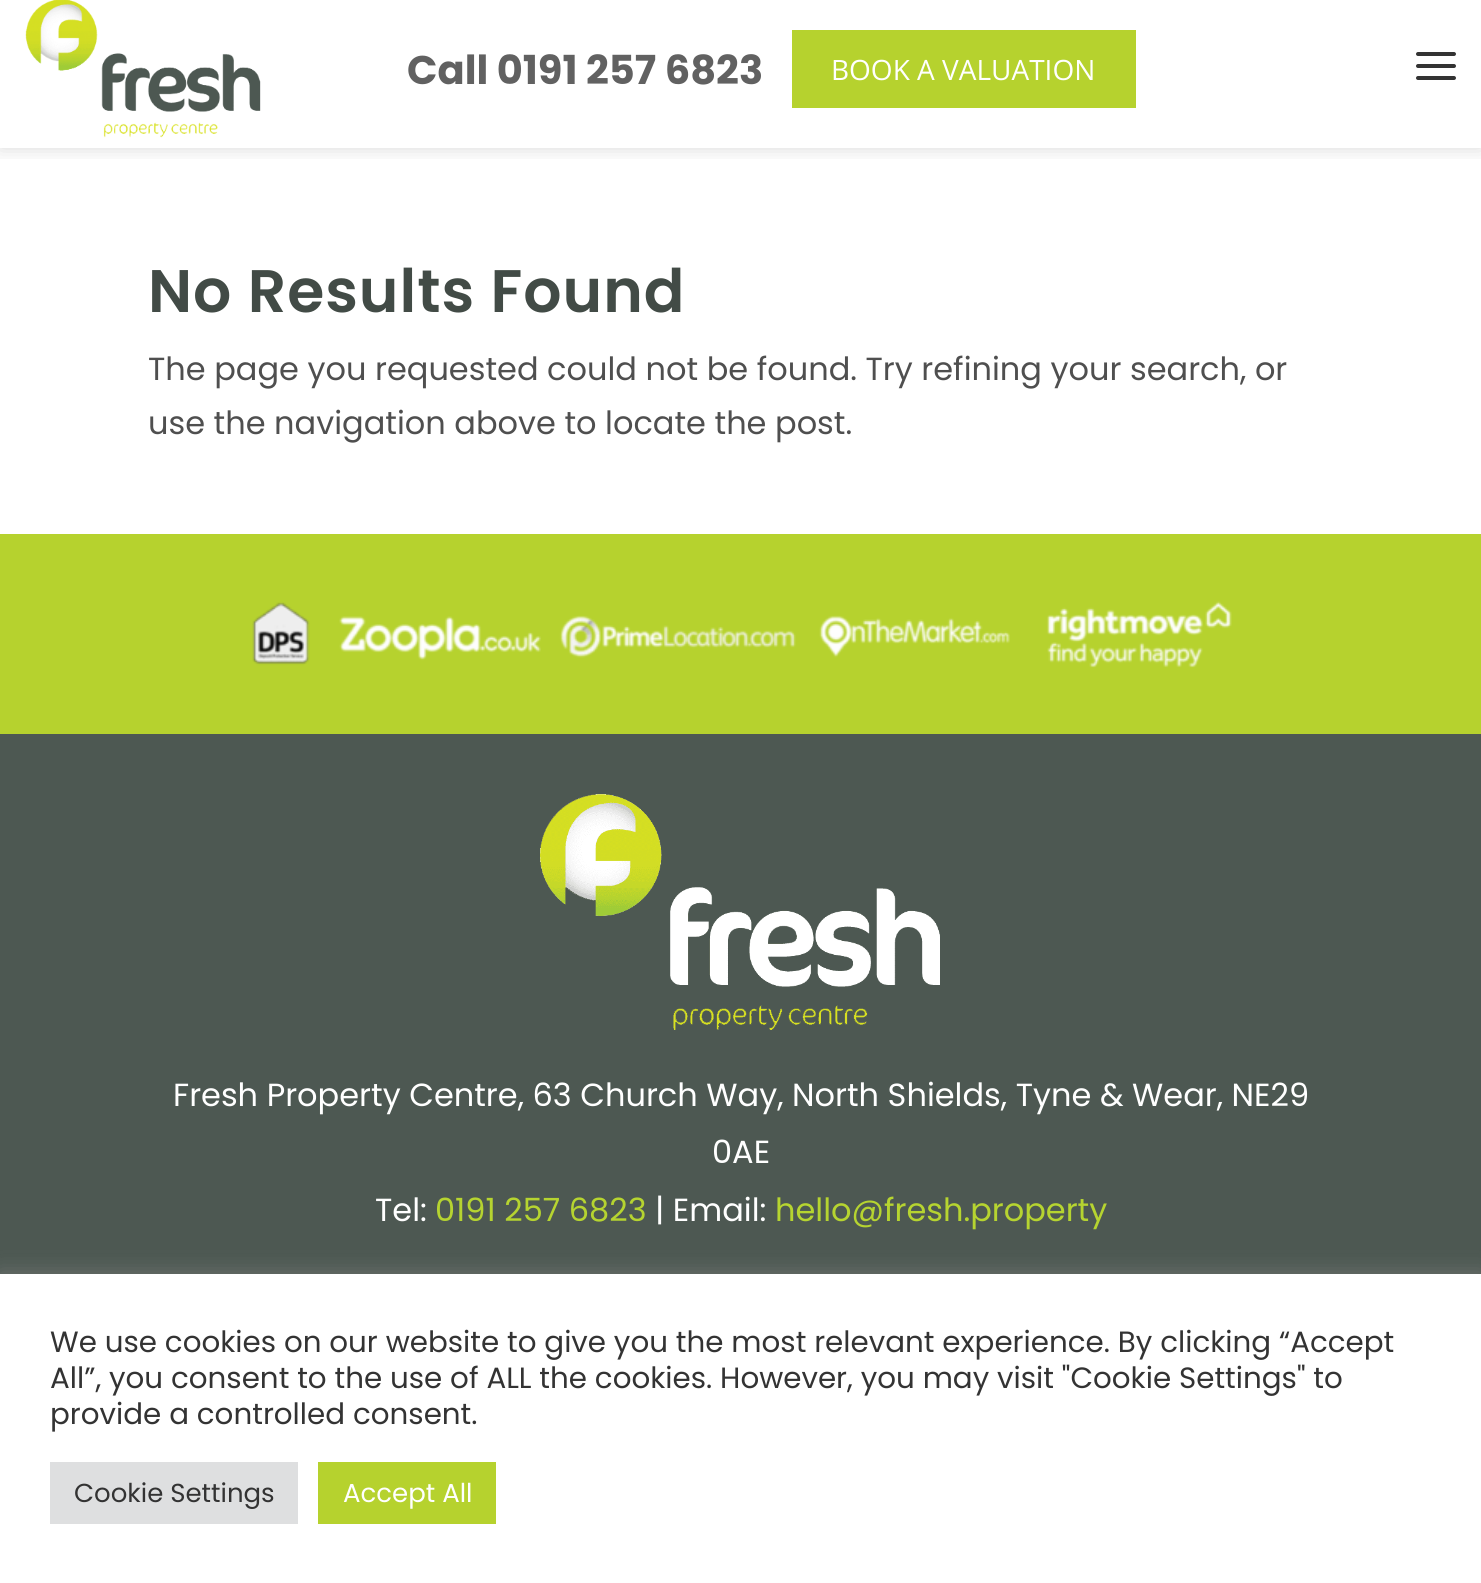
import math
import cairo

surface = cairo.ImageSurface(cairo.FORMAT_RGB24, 1481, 1583)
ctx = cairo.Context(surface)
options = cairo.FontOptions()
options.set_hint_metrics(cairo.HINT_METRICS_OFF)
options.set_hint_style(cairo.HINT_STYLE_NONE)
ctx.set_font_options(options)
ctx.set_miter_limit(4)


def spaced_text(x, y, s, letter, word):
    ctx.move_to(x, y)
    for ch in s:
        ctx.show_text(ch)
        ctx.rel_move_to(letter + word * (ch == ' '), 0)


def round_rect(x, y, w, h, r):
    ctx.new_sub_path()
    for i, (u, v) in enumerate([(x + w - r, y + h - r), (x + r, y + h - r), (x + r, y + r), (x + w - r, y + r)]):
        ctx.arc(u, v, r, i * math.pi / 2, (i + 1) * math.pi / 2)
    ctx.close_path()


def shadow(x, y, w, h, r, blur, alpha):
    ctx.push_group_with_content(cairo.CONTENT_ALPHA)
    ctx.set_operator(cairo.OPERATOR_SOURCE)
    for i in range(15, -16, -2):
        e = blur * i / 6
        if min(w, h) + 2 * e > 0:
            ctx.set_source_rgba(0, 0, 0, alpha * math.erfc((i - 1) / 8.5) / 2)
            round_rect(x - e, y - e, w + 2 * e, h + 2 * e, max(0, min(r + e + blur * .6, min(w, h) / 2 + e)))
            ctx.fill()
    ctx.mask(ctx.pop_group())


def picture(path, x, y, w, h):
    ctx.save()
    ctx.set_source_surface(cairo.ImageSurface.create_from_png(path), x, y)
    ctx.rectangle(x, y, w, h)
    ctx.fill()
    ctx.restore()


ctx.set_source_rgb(1, 1, 1)
ctx.paint()
ctx.save()
ctx.rectangle(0, 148, 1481, 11)
ctx.clip()
ctx.set_source_rgb(0, 0, 0)
shadow(0, -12, 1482, 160, 0, 10, 0.15)
ctx.restore()
picture("img1.png", 25, 0, 236, 138)
ctx.select_font_face("Poppins", cairo.FONT_SLANT_NORMAL, cairo.FONT_WEIGHT_BOLD)
ctx.set_font_size(40)
ctx.set_source_rgb(0.38, 0.38, 0.38)
ctx.move_to(407, 84)
ctx.show_text("Call 0191 257 6823")
ctx.set_source_rgb(0.714, 0.824, 0.18)
ctx.rectangle(792, 30, 344, 78)
ctx.fill()
ctx.select_font_face("Open Sans")
ctx.set_font_size(28)
ctx.set_source_rgb(1, 1, 1)
ctx.move_to(831, 80)
ctx.show_text("BOOK A VALUATION")
picture("img2.png", 1416, 52, 40, 28)
ctx.select_font_face("Poppins SemiBold")
ctx.set_font_size(60)
ctx.set_source_rgb(0.259, 0.294, 0.275)
spaced_text(148, 312, "No Results Found", 1, 0)
ctx.select_font_face("Poppins")
ctx.set_font_size(32)
ctx.set_source_rgb(0.31, 0.31, 0.31)
ctx.move_to(148, 380)
ctx.show_text("The page you requested could not be found. Try refining your search, or")
ctx.move_to(148, 434)
ctx.show_text("use the navigation above to locate the post.")
ctx.set_source_rgb(0.714, 0.824, 0.18)
ctx.rectangle(0, 534, 1481, 200)
ctx.fill()
picture("img3.png", 252, 601, 980, 67)
ctx.set_source_rgb(0.302, 0.345, 0.322)
ctx.rectangle(0, 734, 1481, 540)
ctx.fill()
picture("img4.png", 540, 794, 400, 236)
ctx.set_source_rgb(1, 1, 1)
ctx.move_to(173, 1106)
ctx.show_text("Fresh Property Centre, 63 Church Way, North Shields, Tyne & Wear, NE29")
ctx.move_to(712, 1163)
ctx.show_text("0AE")
ctx.move_to(375, 1221)
ctx.show_text("Tel:")
ctx.set_source_rgb(0.714, 0.831, 0.188)
ctx.move_to(435, 1221)
ctx.show_text("0191 257 6823")
ctx.set_source_rgb(1, 1, 1)
ctx.move_to(655, 1221)
ctx.show_text("| Email:")
ctx.set_source_rgb(0.714, 0.831, 0.188)
ctx.move_to(775, 1221)
ctx.show_text("hello@fresh.property")
ctx.set_source_rgb(0.675, 0.671, 0.671)
shadow(0, 1272, 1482, 310, 0, 10, 0.3)
ctx.set_source_rgb(1, 1, 1)
ctx.rectangle(0, 1274, 1481, 309)
ctx.fill()
ctx.set_font_size(29.35)
ctx.set_source_rgb(0.2, 0.2, 0.2)
ctx.move_to(50, 1352)
ctx.show_text("We use cookies on our website to give you the most relevant experience. By clicking “Accept")
ctx.move_to(50, 1388)
ctx.show_text("All”, you consent to the use of ALL the cookies. However, you may visit \"Cookie Settings\" to")
ctx.move_to(50, 1424)
ctx.show_text("provide a controlled consent.")
ctx.set_source_rgb(0.871, 0.875, 0.878)
ctx.rectangle(50, 1462, 248, 62)
ctx.fill()
ctx.set_font_size(26)
ctx.set_source_rgb(0.2, 0.2, 0.2)
ctx.move_to(74, 1502)
ctx.show_text("Cookie Settings")
ctx.set_source_rgb(0.714, 0.824, 0.18)
ctx.rectangle(318, 1462, 178, 62)
ctx.fill()
ctx.set_source_rgb(1, 1, 1)
ctx.move_to(343, 1502)
ctx.show_text("Accept All")
surface.write_to_png("page.png")
